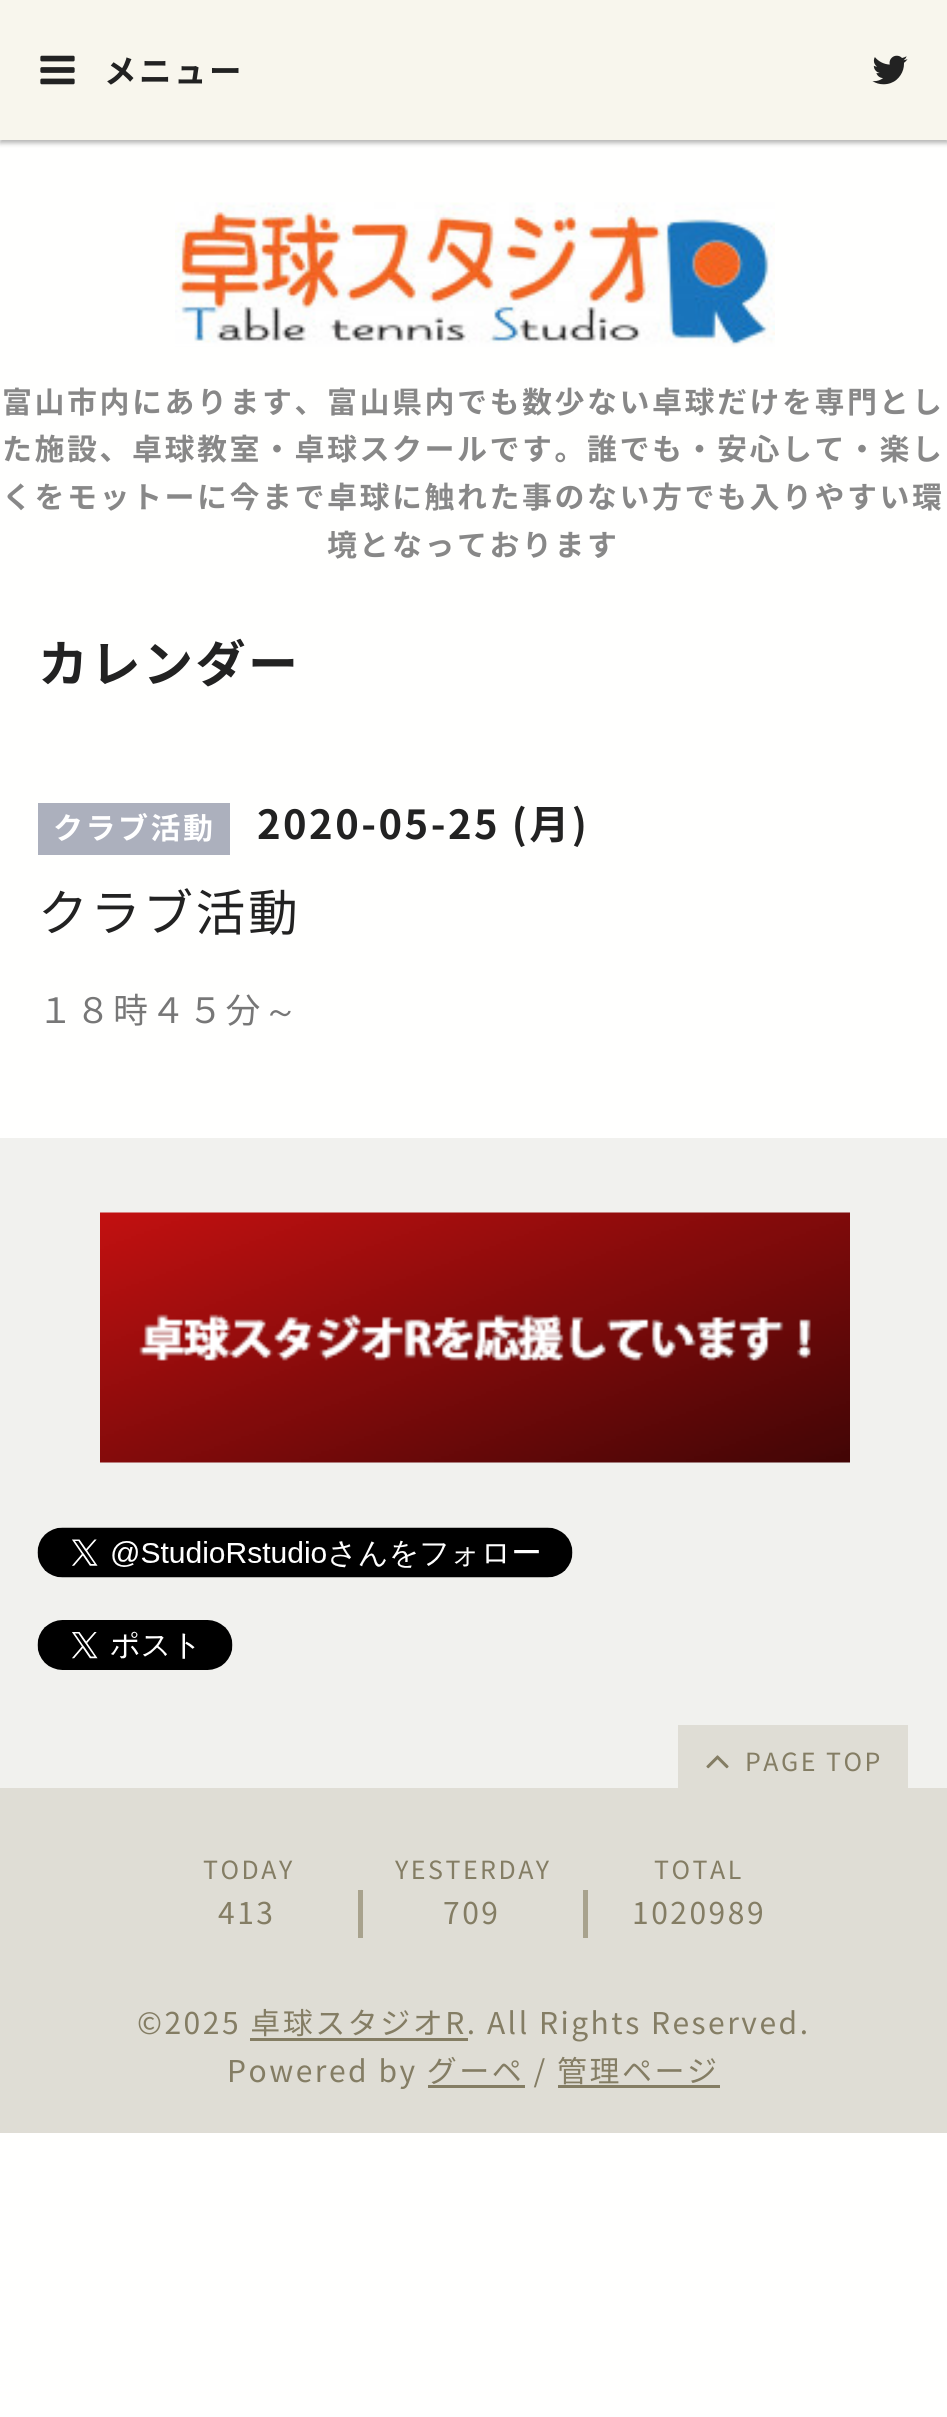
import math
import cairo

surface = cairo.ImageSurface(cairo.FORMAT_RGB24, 947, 2417)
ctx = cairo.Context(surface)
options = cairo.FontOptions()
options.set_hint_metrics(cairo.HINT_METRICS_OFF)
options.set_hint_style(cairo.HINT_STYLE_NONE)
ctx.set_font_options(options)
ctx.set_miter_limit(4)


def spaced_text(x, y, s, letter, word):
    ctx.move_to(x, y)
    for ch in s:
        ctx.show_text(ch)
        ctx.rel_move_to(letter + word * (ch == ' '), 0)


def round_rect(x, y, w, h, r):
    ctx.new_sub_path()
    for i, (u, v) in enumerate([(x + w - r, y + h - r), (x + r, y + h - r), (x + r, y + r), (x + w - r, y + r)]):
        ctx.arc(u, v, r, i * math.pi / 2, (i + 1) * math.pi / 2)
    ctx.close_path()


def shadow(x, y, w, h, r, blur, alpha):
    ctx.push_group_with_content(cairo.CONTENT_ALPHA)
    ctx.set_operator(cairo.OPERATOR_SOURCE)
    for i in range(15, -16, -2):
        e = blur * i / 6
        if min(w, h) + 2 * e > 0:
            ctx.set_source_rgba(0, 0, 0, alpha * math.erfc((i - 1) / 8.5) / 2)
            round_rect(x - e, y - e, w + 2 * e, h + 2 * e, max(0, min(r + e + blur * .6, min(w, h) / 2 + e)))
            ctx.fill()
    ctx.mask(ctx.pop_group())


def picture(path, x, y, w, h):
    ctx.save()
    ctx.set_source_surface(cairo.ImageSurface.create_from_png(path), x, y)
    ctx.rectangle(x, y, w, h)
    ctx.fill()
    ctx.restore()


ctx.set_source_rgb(1, 1, 0.996)
ctx.paint()
ctx.set_source_rgb(0, 0, 0)
shadow(0, 3, 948, 140, 0, 2.5, 0.3)
ctx.set_source_rgb(0.969, 0.961, 0.929)
ctx.rectangle(0, 0, 947, 140)
ctx.fill()
picture("img1.png", 40, 55, 35, 30)
ctx.select_font_face("Noto Sans JP", cairo.FONT_SLANT_NORMAL, cairo.FONT_WEIGHT_BOLD)
ctx.set_font_size(32.5)
ctx.set_source_rgb(0.133, 0.133, 0.133)
spaced_text(104, 83, "メニュー", 2.5, 0)
picture("img2.png", 872, 55, 36, 30)
picture("img3.png", 175, 202, 600, 145)
ctx.set_font_size(30)
ctx.set_source_rgb(0.533, 0.533, 0.533)
spaced_text(2, 413, "富山市内にあります、富山県内でも数少ない卓球だけを専門とし", 2.5, 0)
spaced_text(2, 460, "た施設、卓球教室・卓球スクールです。誰でも・安心して・楽し", 2.5, 0)
spaced_text(2, 508, "くをモットーに今まで卓球に触れた事のない方でも入りやすい環", 2.5, 0)
spaced_text(327, 556, "境となっております", 2.5, 0)
ctx.set_font_size(50)
ctx.set_source_rgb(0.133, 0.133, 0.133)
spaced_text(38, 682, "カレンダー", 2.5, 0)
ctx.set_source_rgb(0.675, 0.69, 0.741)
ctx.rectangle(38, 803, 192, 52)
ctx.fill()
ctx.set_font_size(30)
ctx.set_source_rgb(1, 1, 1)
spaced_text(53, 839, "クラブ活動", 2.5, 0)
ctx.set_font_size(40)
ctx.set_source_rgb(0.133, 0.133, 0.133)
spaced_text(257, 839, "2020-05-25 (月)", 2.5, 0)
ctx.select_font_face("Noto Sans JP")
ctx.set_font_size(50)
spaced_text(38, 931, "クラブ活動", 2.5, 0)
ctx.set_font_size(35)
ctx.set_source_rgb(0.467, 0.467, 0.467)
spaced_text(38, 1023, "１８時４５分", 2.5, 0)
ctx.select_font_face("WenQuanYi Zen Hei Medium")
spaced_text(263, 1023, "～", 2.5, 0)
ctx.set_source_rgb(0.945, 0.945, 0.933)
ctx.rectangle(0, 1138, 947, 650)
ctx.fill()
picture("img4.png", 100, 1212, 750, 251)
picture("img5.png", 37, 1527, 536, 51)
picture("img6.png", 37, 1620, 196, 50)
ctx.set_source_rgb(0.875, 0.867, 0.835)
ctx.rectangle(0, 1788, 947, 345)
ctx.fill()
ctx.rectangle(678, 1725, 230, 63)
ctx.fill()
picture("img7.png", 706, 1755, 23, 14)
ctx.select_font_face("Noto Sans JP")
ctx.set_font_size(25)
ctx.set_source_rgb(0.518, 0.49, 0.392)
spaced_text(745, 1771, "PAGE TOP", 2.5, 0)
spaced_text(203, 1879, "TODAY", 2.5, 0)
ctx.set_source_rgb(0.659, 0.635, 0.553)
ctx.rectangle(358, 1890, 5, 48)
ctx.fill()
ctx.set_font_size(30)
ctx.set_source_rgb(0.518, 0.49, 0.392)
spaced_text(218, 1924, "413", 2.5, 0)
ctx.set_font_size(25)
spaced_text(395, 1879, "YESTERDAY", 2.5, 0)
ctx.set_source_rgb(0.659, 0.635, 0.553)
ctx.rectangle(583, 1890, 5, 48)
ctx.fill()
ctx.set_font_size(30)
ctx.set_source_rgb(0.518, 0.49, 0.392)
spaced_text(443, 1924, "709", 2.5, 0)
ctx.set_font_size(25)
spaced_text(654, 1879, "TOTAL", 2.5, 0)
ctx.set_font_size(30)
spaced_text(632, 1924, "1020989", 2.5, 0)
spaced_text(137, 2034, "©2025 卓球スタジオR. All Rights Reserved.", 2.5, 0)
ctx.rectangle(250, 2038, 218, 3)
ctx.fill()
spaced_text(227, 2082, "Powered by グーペ / 管理ページ", 2.5, 0)
ctx.rectangle(428, 2085, 97, 3)
ctx.fill()
ctx.rectangle(558, 2085, 162, 3)
ctx.fill()
surface.write_to_png("page.png")
